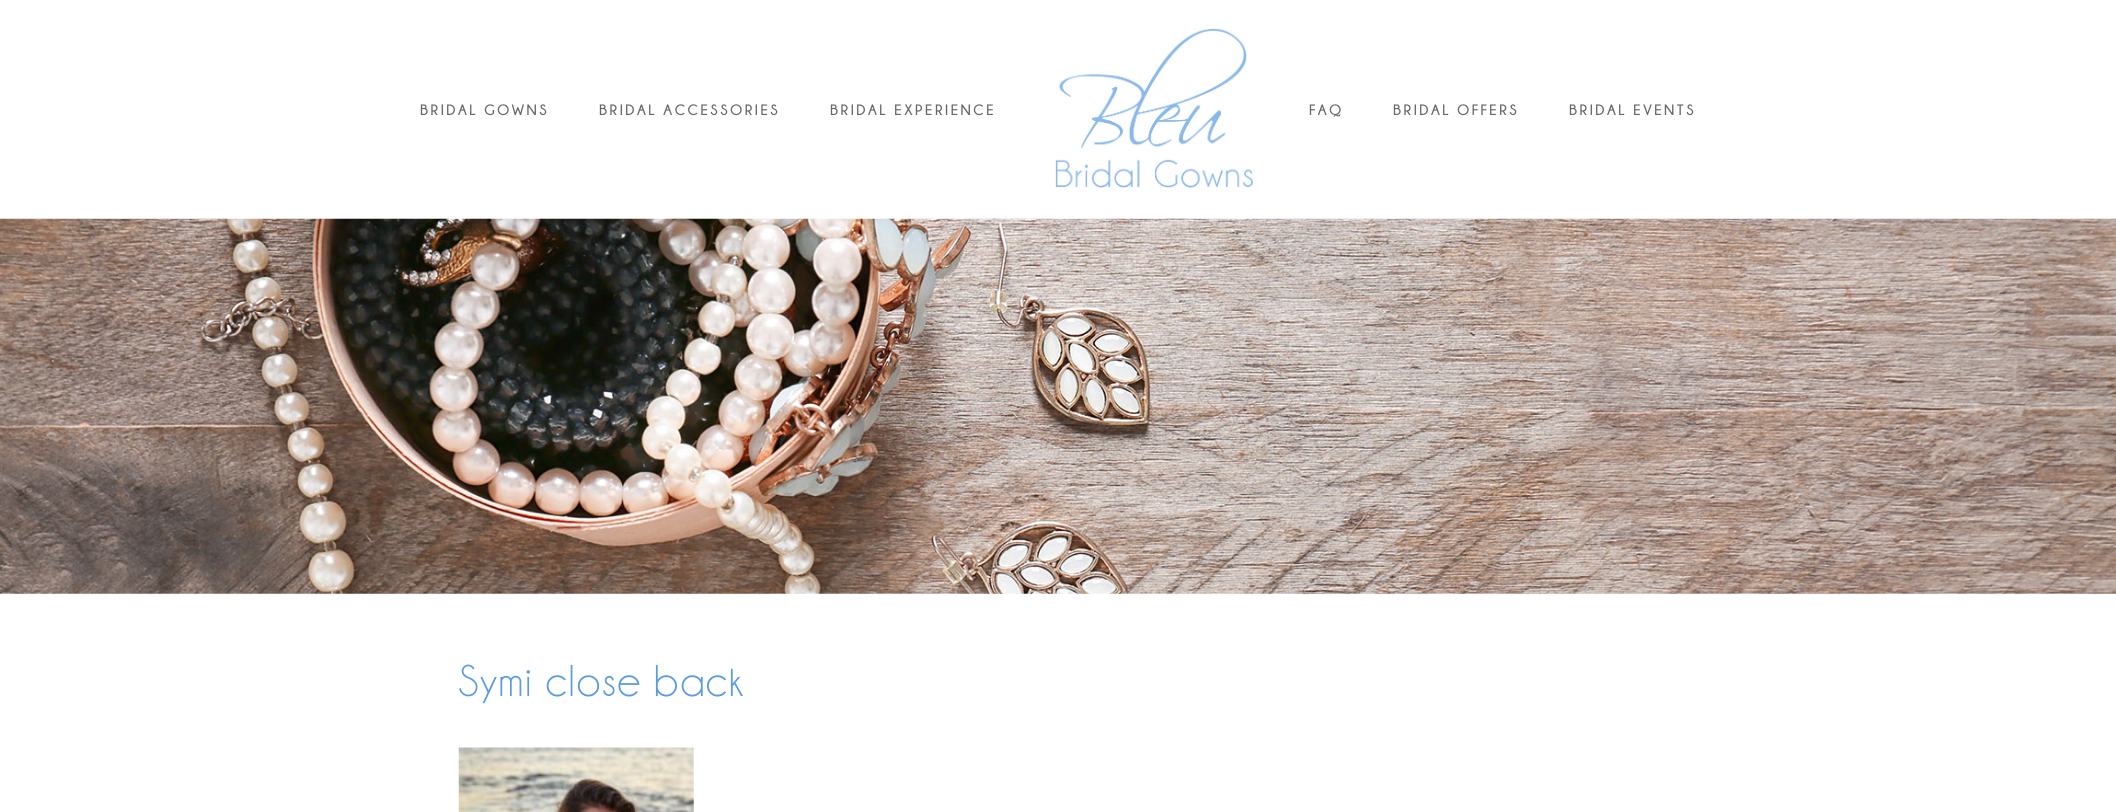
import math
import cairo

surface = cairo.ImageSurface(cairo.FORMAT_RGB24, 2116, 812)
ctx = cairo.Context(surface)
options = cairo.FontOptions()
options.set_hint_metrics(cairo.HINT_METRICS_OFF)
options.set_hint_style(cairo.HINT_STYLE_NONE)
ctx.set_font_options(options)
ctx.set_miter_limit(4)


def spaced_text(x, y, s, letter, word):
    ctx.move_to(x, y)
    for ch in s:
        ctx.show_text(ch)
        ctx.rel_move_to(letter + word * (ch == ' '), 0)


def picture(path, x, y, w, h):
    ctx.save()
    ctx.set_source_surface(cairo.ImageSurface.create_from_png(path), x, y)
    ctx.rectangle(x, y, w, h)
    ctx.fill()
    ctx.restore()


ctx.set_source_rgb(1, 1, 1)
ctx.paint()
ctx.select_font_face("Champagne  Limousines", cairo.FONT_SLANT_NORMAL, cairo.FONT_WEIGHT_BOLD)
ctx.set_font_size(15)
ctx.set_source_rgb(0.4, 0.4, 0.4)
spaced_text(420, 115, "BRIDAL GOWNS", 2.5, 0)
spaced_text(599, 115, "BRIDAL ACCESSORIES", 2.5, 0)
spaced_text(830, 115, "BRIDAL EXPERIENCE", 2.5, 0)
picture("img1.png", 1055, 28, 198, 160)
spaced_text(1309, 115, "FAQ", 2.5, 0)
spaced_text(1393, 115, "BRIDAL OFFERS", 2.5, 0)
spaced_text(1569, 115, "BRIDAL EVENTS", 2.5, 0)
picture("img2.png", 0, 218, 2116, 376)
ctx.select_font_face("Champagne  Limousines")
ctx.set_font_size(45)
ctx.set_source_rgb(0.349, 0.612, 0.882)
spaced_text(458, 696, "Symi close back", 1.25, 0)
picture("img3.png", 458, 747, 236, 65)
surface.write_to_png("page.png")
